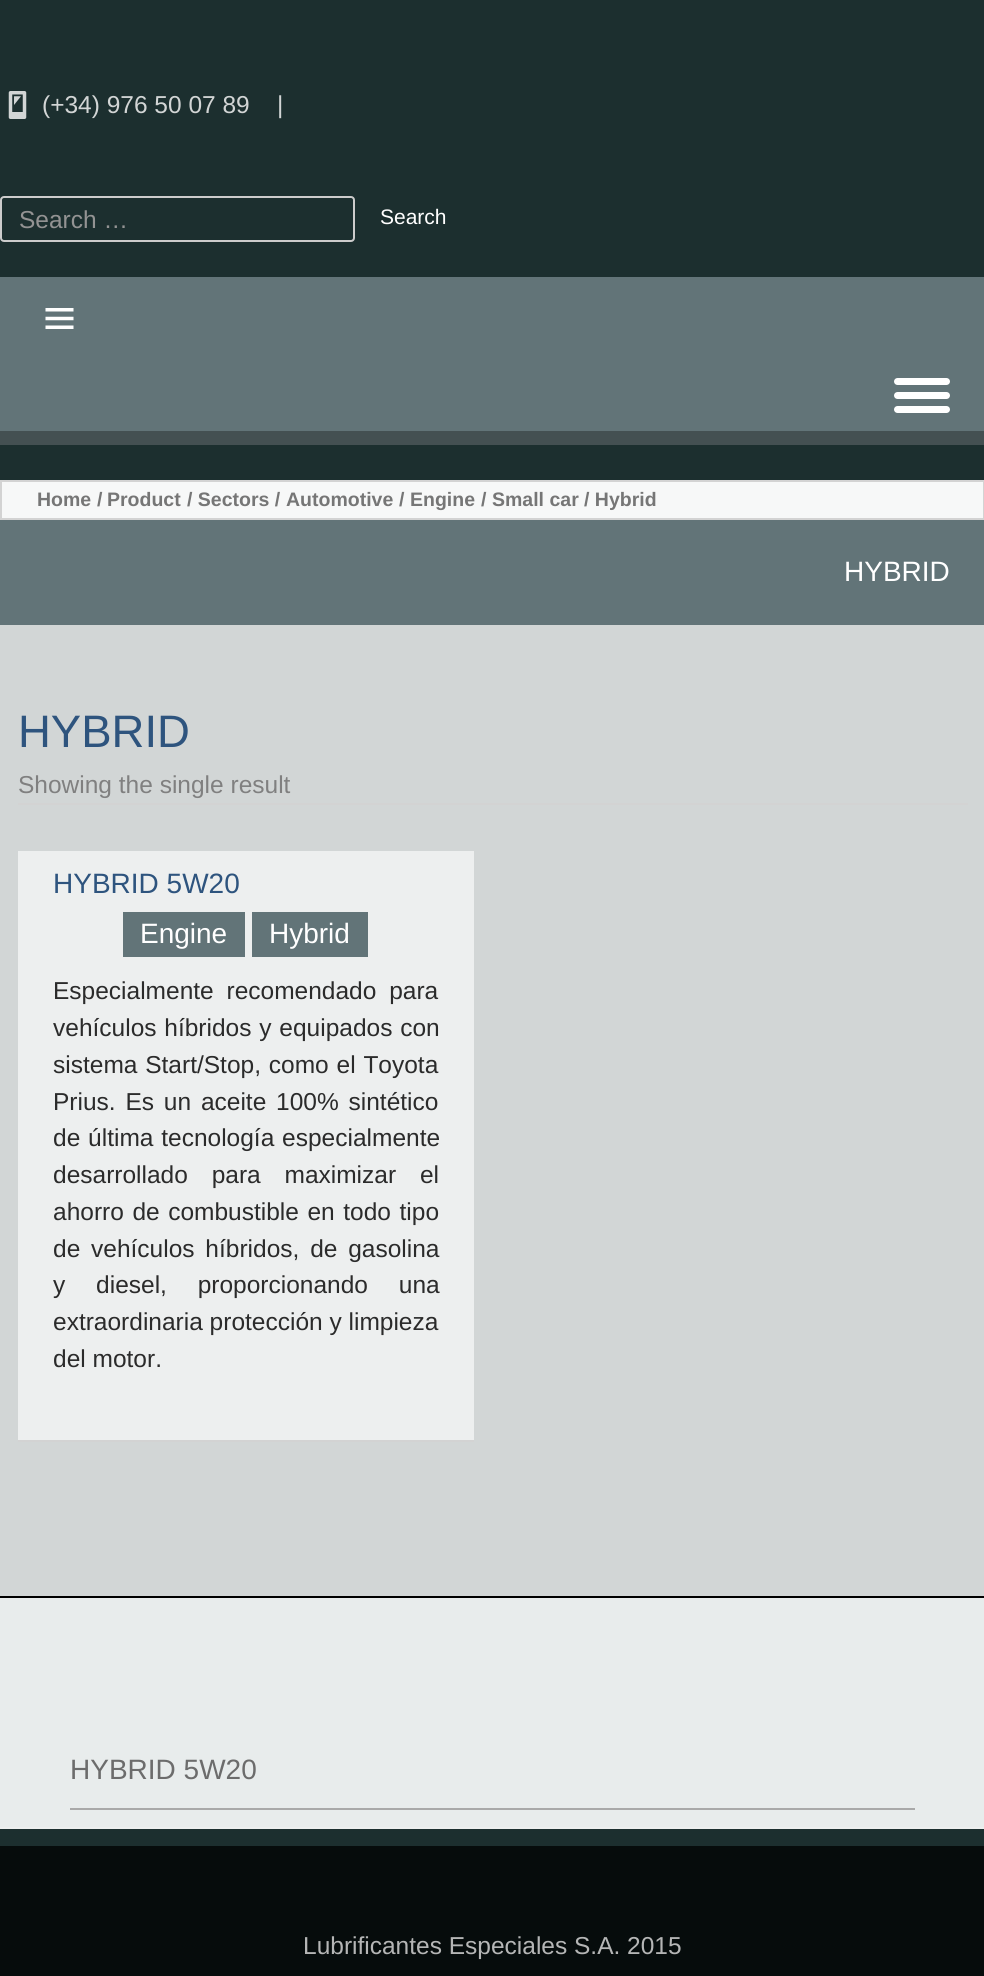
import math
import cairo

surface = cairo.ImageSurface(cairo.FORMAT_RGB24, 984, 1976)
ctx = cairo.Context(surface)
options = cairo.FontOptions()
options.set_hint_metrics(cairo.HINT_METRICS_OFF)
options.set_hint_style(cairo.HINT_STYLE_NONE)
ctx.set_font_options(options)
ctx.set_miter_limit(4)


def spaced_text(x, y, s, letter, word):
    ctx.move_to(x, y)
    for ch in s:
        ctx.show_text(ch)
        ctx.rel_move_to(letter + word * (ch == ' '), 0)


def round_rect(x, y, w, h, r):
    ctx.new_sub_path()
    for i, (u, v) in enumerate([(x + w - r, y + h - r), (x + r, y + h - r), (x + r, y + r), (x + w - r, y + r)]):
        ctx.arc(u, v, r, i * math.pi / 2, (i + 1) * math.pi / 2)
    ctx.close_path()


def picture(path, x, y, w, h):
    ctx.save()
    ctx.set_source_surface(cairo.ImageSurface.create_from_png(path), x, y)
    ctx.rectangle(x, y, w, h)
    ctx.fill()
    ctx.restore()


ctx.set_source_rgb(0.11, 0.184, 0.184)
ctx.paint()
picture("img1.png", 8, 91, 19, 28)
ctx.select_font_face("Liberation Sans")
ctx.set_font_size(24.5)
ctx.set_source_rgb(0.824, 0.835, 0.835)
ctx.move_to(42, 113)
ctx.show_text("(+34) 976 50 07 89")
ctx.move_to(277, 113)
ctx.show_text("|")
round_rect(1, 197, 353, 44, 3)
ctx.set_source_rgb(0.8, 0.8, 0.8)
ctx.stroke()
ctx.set_source_rgb(0.576, 0.576, 0.576)
ctx.move_to(19, 228)
ctx.show_text("Search …")
ctx.set_font_size(21)
ctx.set_source_rgb(1, 1, 1)
ctx.move_to(380, 224)
ctx.show_text("Search")
ctx.set_source_rgb(0.384, 0.455, 0.471)
ctx.rectangle(0, 277, 984, 154)
ctx.fill()
ctx.set_source_rgb(0.267, 0.314, 0.322)
ctx.rectangle(0, 431, 984, 14)
ctx.fill()
picture("img2.png", 45, 308, 29, 21)
ctx.set_source_rgb(1, 1, 1)
round_rect(894, 378, 56, 7, 3.5)
ctx.fill()
round_rect(894, 392, 56, 7, 3.5)
ctx.fill()
round_rect(894, 406, 56, 7, 3.5)
ctx.fill()
ctx.set_source_rgb(0.824, 0.839, 0.839)
ctx.rectangle(0, 625, 984, 971)
ctx.fill()
ctx.set_source_rgb(0.965, 0.969, 0.969)
ctx.rectangle(1, 481, 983, 38)
ctx.fill_preserve()
ctx.set_source_rgb(0.827, 0.827, 0.827)
ctx.stroke()
ctx.select_font_face("Liberation Sans", cairo.FONT_SLANT_NORMAL, cairo.FONT_WEIGHT_BOLD)
ctx.set_font_size(19.5)
ctx.set_source_rgb(0.463, 0.463, 0.463)
ctx.move_to(37, 506)
ctx.show_text("Home")
ctx.move_to(97, 506)
ctx.show_text("/")
ctx.move_to(107, 506)
ctx.show_text("Product")
ctx.move_to(187, 506)
ctx.show_text("/ Sectors /")
ctx.move_to(286, 506)
ctx.show_text("Automotive")
ctx.move_to(399, 506)
ctx.show_text("/")
ctx.move_to(410, 506)
ctx.show_text("Engine")
ctx.move_to(481, 506)
ctx.show_text("/")
ctx.move_to(492, 506)
ctx.show_text("Small car")
ctx.move_to(584, 506)
ctx.show_text("/ Hybrid")
ctx.set_source_rgb(0.384, 0.455, 0.471)
ctx.rectangle(0, 520, 984, 105)
ctx.fill()
ctx.select_font_face("Liberation Sans")
ctx.set_font_size(28)
ctx.set_source_rgb(1, 1, 1)
ctx.move_to(844, 581)
ctx.show_text("HYBRID")
ctx.set_font_size(45.5)
ctx.set_source_rgb(0.18, 0.329, 0.494)
ctx.move_to(18, 747)
ctx.show_text("HYBRID")
ctx.set_source_rgb(0.827, 0.827, 0.827)
ctx.rectangle(18, 803, 950, 2)
ctx.fill()
ctx.set_font_size(24.5)
ctx.set_source_rgb(0.502, 0.502, 0.502)
ctx.move_to(18, 793)
ctx.show_text("Showing the single result")
ctx.set_source_rgb(0.929, 0.937, 0.937)
ctx.rectangle(18, 851, 456, 589)
ctx.fill()
ctx.set_source_rgb(0.827, 0.827, 0.827)
ctx.rectangle(18, 1440, 456, 2)
ctx.fill()
ctx.set_font_size(28)
ctx.set_source_rgb(0.18, 0.329, 0.494)
ctx.move_to(53, 893)
ctx.show_text("HYBRID 5W20")
ctx.set_source_rgb(0.384, 0.455, 0.471)
ctx.rectangle(123, 912, 122, 45)
ctx.fill()
ctx.set_source_rgb(1, 1, 1)
ctx.move_to(140, 943)
ctx.show_text("Engine")
ctx.set_source_rgb(0.384, 0.455, 0.471)
ctx.rectangle(252, 912, 116, 45)
ctx.fill()
ctx.set_source_rgb(1, 1, 1)
ctx.move_to(269, 943)
ctx.show_text("Hybrid")
ctx.set_font_size(24.5)
ctx.set_source_rgb(0.169, 0.169, 0.169)
spaced_text(53, 999, "Especialmente recomendado para", 0, 6)
spaced_text(53, 1036, "vehículos híbridos y equipados con", 0, 1)
spaced_text(53, 1073, "sistema Start/Stop, como el Toyota", 0, 1)
spaced_text(53, 1110, "Prius. Es un aceite 100% sintético", 0, 3)
spaced_text(53, 1146, "de última tecnología especialmente", 0, 1)
spaced_text(53, 1183, "desarrollado para maximizar el", 0, 17)
spaced_text(53, 1220, "ahorro de combustible en todo tipo", 0, 1.75)
spaced_text(53, 1257, "de vehículos híbridos, de gasolina", 0, 4)
spaced_text(53, 1293, "y diesel, proporcionando una", 0, 24)
ctx.move_to(53, 1330)
ctx.show_text("extraordinaria protección y limpieza")
ctx.move_to(53, 1367)
ctx.show_text("del motor.")
ctx.set_source_rgb(0.91, 0.922, 0.922)
ctx.rectangle(0, 1598, 984, 229)
ctx.fill()
ctx.set_source_rgb(0, 0, 0)
ctx.rectangle(0, 1596, 984, 2)
ctx.fill()
ctx.set_source_rgb(0.929, 0.937, 0.937)
ctx.rectangle(0, 1827, 984, 2)
ctx.fill()
ctx.set_source_rgb(0.663, 0.663, 0.663)
ctx.rectangle(70, 1808, 845, 2)
ctx.fill()
ctx.set_font_size(28)
ctx.set_source_rgb(0.424, 0.424, 0.424)
ctx.move_to(70, 1779)
ctx.show_text("HYBRID 5W20")
ctx.set_source_rgb(0.027, 0.047, 0.047)
ctx.rectangle(0, 1846, 984, 130)
ctx.fill()
ctx.set_font_size(24.5)
ctx.set_source_rgb(0.71, 0.714, 0.714)
ctx.move_to(303, 1954)
ctx.show_text("Lubrificantes Especiales S.A. 2015")
surface.write_to_png("page.png")
